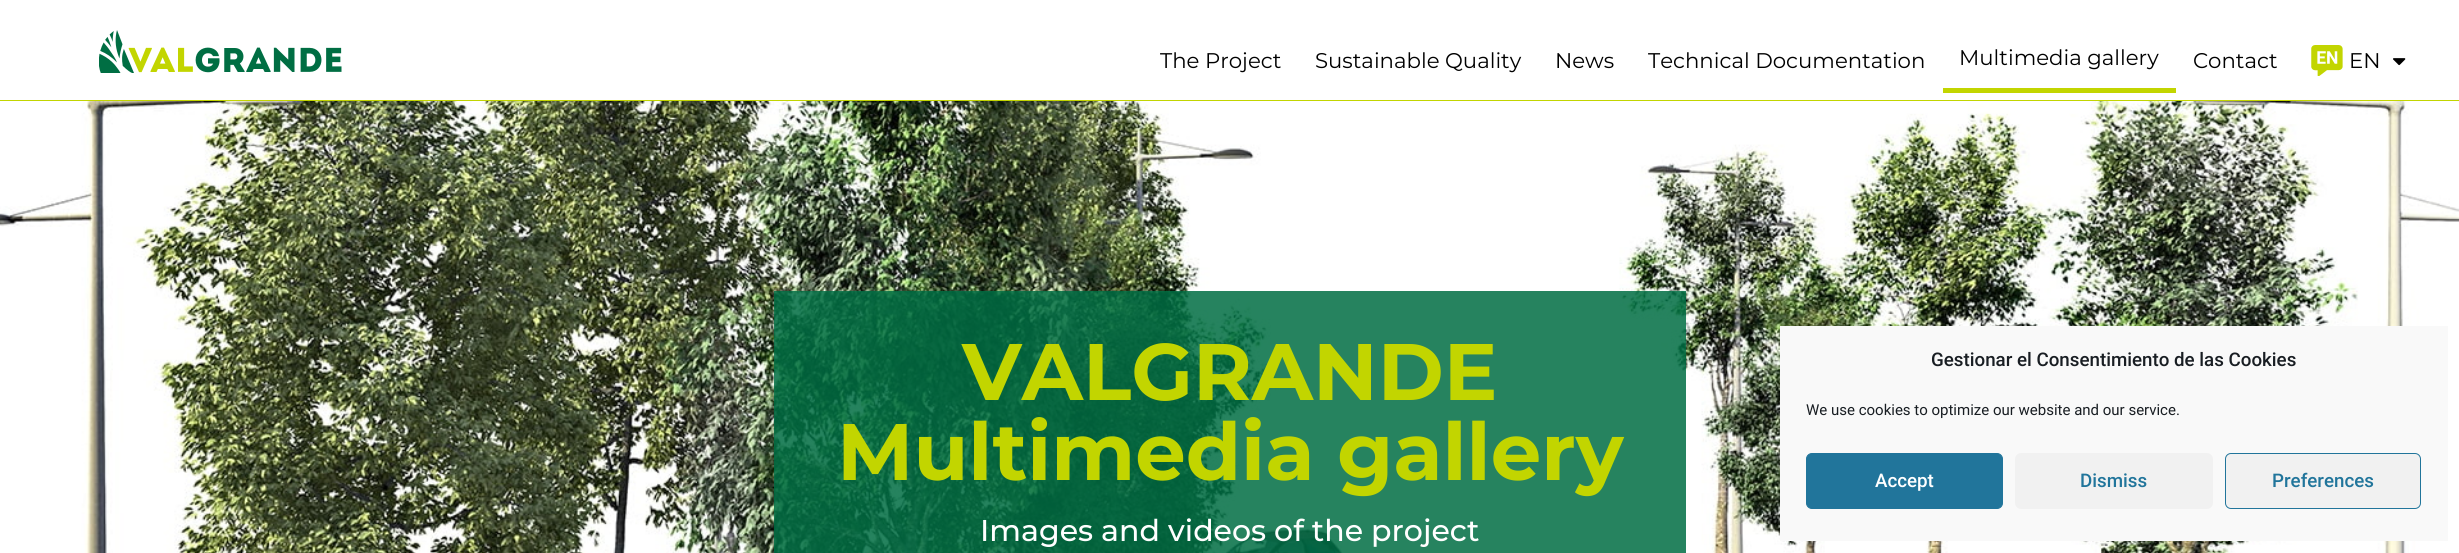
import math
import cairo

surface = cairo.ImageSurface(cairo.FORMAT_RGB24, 2459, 553)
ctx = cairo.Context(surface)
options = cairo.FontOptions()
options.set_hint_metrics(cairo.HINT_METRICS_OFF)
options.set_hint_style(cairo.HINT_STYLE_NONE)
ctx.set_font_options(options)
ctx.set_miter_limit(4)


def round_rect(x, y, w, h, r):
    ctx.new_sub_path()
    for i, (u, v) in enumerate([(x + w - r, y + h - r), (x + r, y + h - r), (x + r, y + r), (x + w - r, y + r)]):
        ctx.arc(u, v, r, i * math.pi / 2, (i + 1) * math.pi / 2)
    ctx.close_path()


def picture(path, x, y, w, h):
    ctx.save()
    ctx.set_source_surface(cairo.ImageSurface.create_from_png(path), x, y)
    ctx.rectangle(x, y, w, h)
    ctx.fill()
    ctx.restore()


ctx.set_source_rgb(1, 1, 1)
ctx.paint()
ctx.set_source_rgb(0.761, 0.835, 0)
ctx.rectangle(0, 100, 2459, 1)
ctx.fill()
picture("img1.png", 99, 30, 243, 43)
ctx.select_font_face("Montserrat")
ctx.set_font_size(21.25)
ctx.set_source_rgb(0, 0, 0)
ctx.move_to(1160, 68)
ctx.show_text("The Project")
ctx.move_to(1315, 68)
ctx.show_text("Sustainable Quality")
ctx.move_to(1555, 68)
ctx.show_text("News")
ctx.move_to(1648, 68)
ctx.show_text("Technical Documentation")
ctx.set_source_rgb(0.761, 0.835, 0)
ctx.rectangle(1943, 88, 233, 5)
ctx.fill()
ctx.set_source_rgb(0, 0, 0)
ctx.move_to(1959, 65)
ctx.show_text("Multimedia gallery")
ctx.move_to(2193, 68)
ctx.show_text("Contact")
picture("img2.png", 2311, 45, 32, 31)
ctx.move_to(2349, 68)
ctx.show_text("EN")
picture("img3.png", 2393, 58, 13, 8)
picture("img4.png", 0, 101, 2459, 452)
ctx.set_source_rgba(0, 0.431, 0.263, 0.85)
ctx.rectangle(774, 291, 912, 262)
ctx.fill()
ctx.select_font_face("Montserrat", cairo.FONT_SLANT_NORMAL, cairo.FONT_WEIGHT_BOLD)
ctx.set_font_size(80)
ctx.set_source_rgb(0.761, 0.835, 0)
ctx.move_to(962, 400)
ctx.show_text("VALGRANDE")
ctx.move_to(837, 480)
ctx.show_text("Multimedia gallery")
ctx.select_font_face("Montserrat Medium")
ctx.set_font_size(30)
ctx.set_source_rgb(1, 1, 1)
ctx.move_to(980, 541)
ctx.show_text("Images and videos of the project")
ctx.set_source_rgb(0.976, 0.976, 0.976)
ctx.rectangle(1780, 326, 668, 215)
ctx.fill()
ctx.select_font_face("Roboto Medium")
ctx.set_font_size(18.75)
ctx.set_source_rgb(0.098, 0.118, 0.137)
ctx.move_to(1931, 366)
ctx.show_text("Gestionar el Consentimiento de las Cookies")
ctx.select_font_face("Roboto")
ctx.set_font_size(15)
ctx.move_to(1806, 415)
ctx.show_text("We use cookies to optimize our website and our service.")
ctx.set_source_rgb(0.129, 0.459, 0.608)
round_rect(1806.5, 453.5, 196, 55, 5.5)
ctx.fill_preserve()
ctx.set_line_width(1)
ctx.stroke()
ctx.select_font_face("Roboto Medium")
ctx.set_font_size(18.75)
ctx.set_source_rgb(1, 1, 1)
ctx.move_to(1875, 487)
ctx.show_text("Accept")
ctx.set_source_rgb(0.945, 0.945, 0.945)
round_rect(2015, 453, 198, 56, 6)
ctx.fill()
ctx.set_source_rgb(0.129, 0.459, 0.608)
ctx.move_to(2080, 487)
ctx.show_text("Dismiss")
ctx.set_source_rgb(0.945, 0.945, 0.945)
round_rect(2225.5, 453.5, 195, 55, 5.5)
ctx.fill_preserve()
ctx.set_source_rgb(0.129, 0.459, 0.608)
ctx.stroke()
ctx.move_to(2272, 487)
ctx.show_text("Preferences")
surface.write_to_png("page.png")
